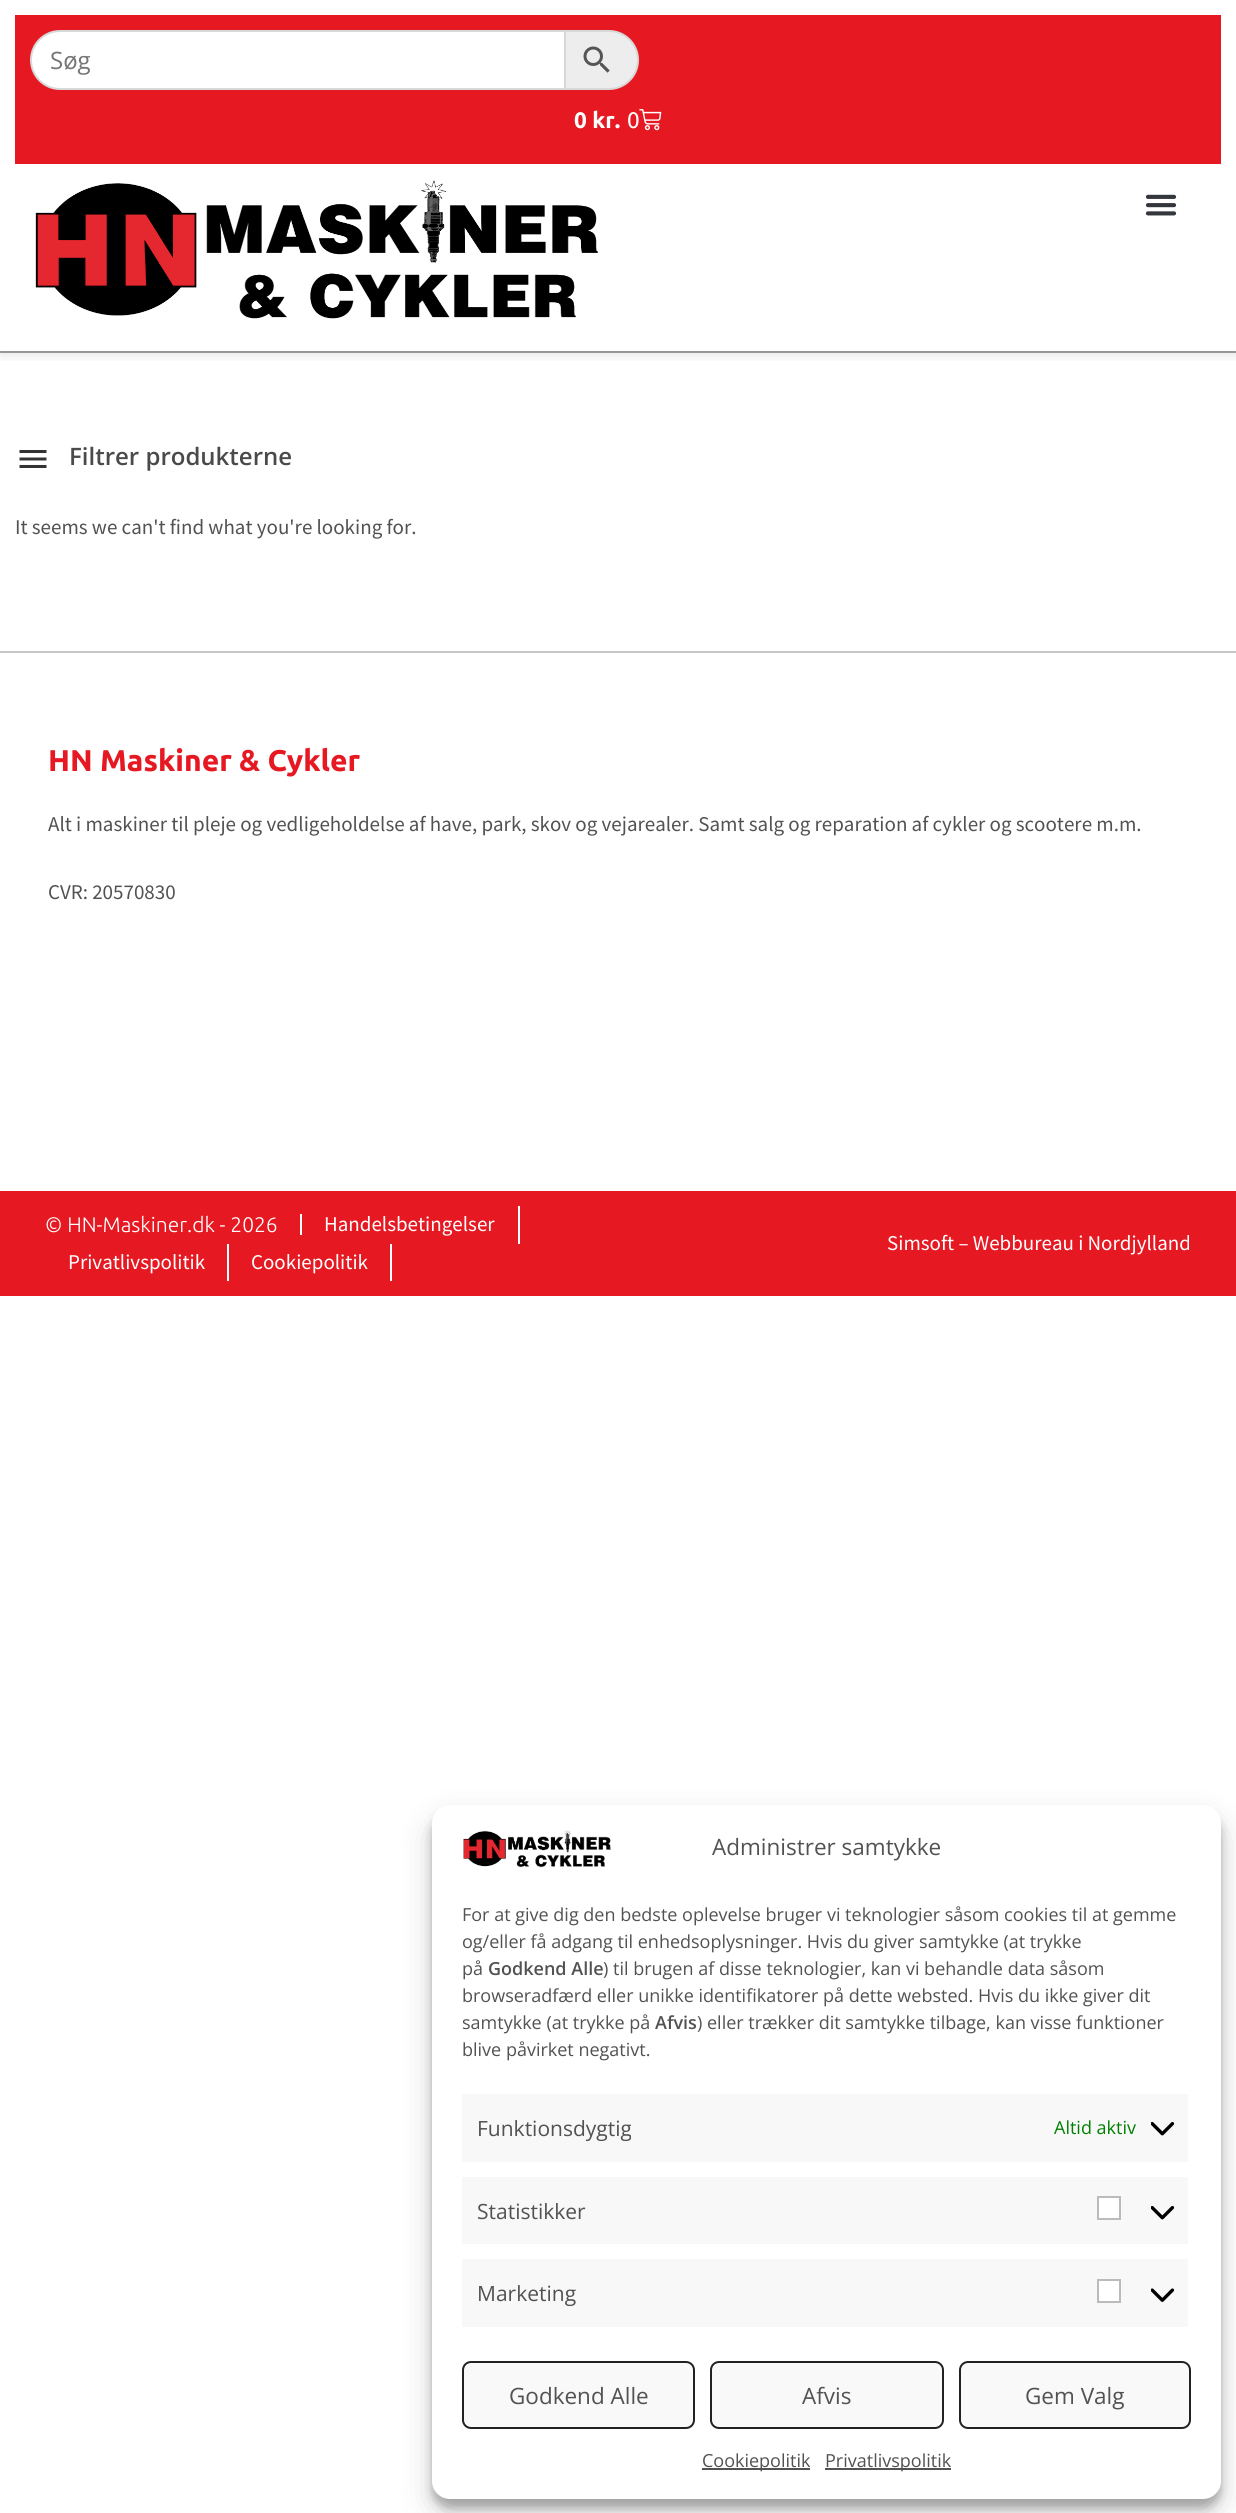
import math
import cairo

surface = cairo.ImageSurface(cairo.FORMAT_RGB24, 1236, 2513)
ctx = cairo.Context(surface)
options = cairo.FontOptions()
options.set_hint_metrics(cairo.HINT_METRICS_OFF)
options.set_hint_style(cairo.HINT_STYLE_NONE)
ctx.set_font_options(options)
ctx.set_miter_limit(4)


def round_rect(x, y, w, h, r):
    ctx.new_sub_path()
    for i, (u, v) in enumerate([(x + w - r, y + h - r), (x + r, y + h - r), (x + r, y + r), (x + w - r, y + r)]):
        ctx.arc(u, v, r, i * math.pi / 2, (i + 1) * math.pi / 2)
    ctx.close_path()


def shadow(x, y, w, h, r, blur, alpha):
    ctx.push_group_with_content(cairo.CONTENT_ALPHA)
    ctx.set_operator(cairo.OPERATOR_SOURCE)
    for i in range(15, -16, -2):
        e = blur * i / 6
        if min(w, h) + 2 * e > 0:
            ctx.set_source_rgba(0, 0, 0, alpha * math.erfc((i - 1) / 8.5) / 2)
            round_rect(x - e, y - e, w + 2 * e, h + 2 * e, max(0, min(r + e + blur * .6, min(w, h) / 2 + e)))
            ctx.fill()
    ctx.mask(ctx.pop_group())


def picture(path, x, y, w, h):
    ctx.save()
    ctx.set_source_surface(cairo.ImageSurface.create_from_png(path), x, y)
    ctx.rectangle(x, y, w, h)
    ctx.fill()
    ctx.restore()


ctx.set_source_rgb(1, 1, 1)
ctx.paint()
ctx.set_source_rgb(0.643, 0.643, 0.643)
ctx.rectangle(0, 351, 1236, 2)
ctx.fill()
ctx.save()
ctx.rectangle(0, 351, 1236, 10)
ctx.clip()
ctx.set_source_rgb(0, 0, 0)
shadow(0, 0, 1236, 351, 0, 7.5, 0.2)
ctx.restore()
ctx.set_source_rgb(0.902, 0.098, 0.137)
ctx.rectangle(15, 15, 1206, 149)
ctx.fill()
ctx.set_source_rgb(0.929, 0.929, 0.929)
ctx.new_path()
ctx.move_to(565, 31)
ctx.line_to(609, 31)
ctx.curve_to(625, 31, 638, 44, 638, 60)
ctx.curve_to(638, 76, 625, 89, 609, 89)
ctx.line_to(565, 89)
ctx.close_path()
ctx.fill_preserve()
ctx.set_source_rgb(0.847, 0.847, 0.847)
ctx.stroke()
ctx.set_source_rgb(1, 1, 1)
ctx.new_path()
ctx.move_to(60, 31)
ctx.line_to(565, 31)
ctx.line_to(565, 89)
ctx.line_to(60, 89)
ctx.curve_to(44, 89, 31, 76, 31, 60)
ctx.curve_to(31, 44, 44, 31, 60, 31)
ctx.close_path()
ctx.fill_preserve()
ctx.set_source_rgb(0.847, 0.847, 0.847)
ctx.stroke()
ctx.select_font_face("Open Sans")
ctx.set_font_size(24)
ctx.set_source_rgb(0.459, 0.459, 0.459)
ctx.move_to(50, 69)
ctx.show_text("Søg")
picture("img1.png", 583, 46, 27, 27)
ctx.select_font_face("Ubuntu", cairo.FONT_SLANT_NORMAL, cairo.FONT_WEIGHT_BOLD)
ctx.set_font_size(22.5)
ctx.set_source_rgb(1, 1, 1)
ctx.move_to(574, 128)
ctx.show_text("0 kr.")
ctx.select_font_face("Ubuntu")
ctx.move_to(627, 128)
ctx.show_text("0")
picture("img2.png", 639, 109, 23, 22)
picture("img3.png", 35, 180, 563, 139)
picture("img4.png", 1145, 194, 32, 22)
picture("img5.png", 19, 450, 28, 18)
ctx.select_font_face("Open Sans SemiBold")
ctx.set_font_size(24)
ctx.set_source_rgb(0.29, 0.29, 0.29)
ctx.move_to(69, 465)
ctx.show_text("Filtrer produkterne")
ctx.select_font_face("Source Sans Pro")
ctx.set_font_size(21)
ctx.set_source_rgb(0.322, 0.322, 0.322)
ctx.move_to(15, 534)
ctx.show_text("It seems we can't find what you're looking for.")
ctx.set_source_rgb(0.776, 0.776, 0.776)
ctx.rectangle(0, 651, 1236, 2)
ctx.fill()
ctx.select_font_face("Ubuntu", cairo.FONT_SLANT_NORMAL, cairo.FONT_WEIGHT_BOLD)
ctx.set_font_size(30)
ctx.set_source_rgb(0.902, 0.098, 0.137)
ctx.move_to(48, 771)
ctx.show_text("HN Maskiner & Cykler")
ctx.select_font_face("Source Sans Pro")
ctx.set_font_size(21)
ctx.set_source_rgb(0.322, 0.322, 0.322)
ctx.move_to(48, 831)
ctx.show_text("Alt i maskiner til pleje og vedligeholdelse af have, park, skov og vejarealer. Samt salg og reparation af cykler og scootere m.m.")
ctx.move_to(48, 899)
ctx.show_text("CVR: 20570830")
ctx.set_source_rgb(0.902, 0.098, 0.137)
ctx.rectangle(0, 1191, 1236, 105)
ctx.fill()
ctx.set_source_rgb(1, 1, 1)
ctx.rectangle(300, 1214, 2, 21)
ctx.fill()
ctx.select_font_face("Ubuntu Light")
ctx.move_to(45, 1232)
ctx.show_text("© HN-Maskiner.dk - 2026")
ctx.rectangle(518, 1206, 2, 38)
ctx.fill()
ctx.select_font_face("Source Sans Pro")
ctx.move_to(324, 1231)
ctx.show_text("Handelsbetingelser")
ctx.rectangle(227, 1244, 2, 37)
ctx.fill()
ctx.move_to(68, 1269)
ctx.show_text("Privatlivspolitik")
ctx.rectangle(390, 1244, 2, 37)
ctx.fill()
ctx.move_to(251, 1269)
ctx.show_text("Cookiepolitik")
ctx.move_to(887, 1250)
ctx.show_text("Simsoft – Webbureau i Nordjylland")
ctx.set_source_rgb(0, 0, 0)
shadow(432, 1814, 789, 694, 18, 4.5, 0.23)
shadow(432, 1820, 789, 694, 18, 15, 0.19)
ctx.set_source_rgb(1, 1, 1)
round_rect(432, 1805, 789, 694, 18)
ctx.fill()
picture("img6.png", 463, 1830, 148, 38)
ctx.select_font_face("Open Sans")
ctx.set_font_size(22.5)
ctx.set_source_rgb(0.322, 0.322, 0.322)
ctx.move_to(712, 1855)
ctx.show_text("Administrer samtykke")
ctx.set_font_size(18)
ctx.move_to(462, 1921)
ctx.show_text("For at give dig den bedste oplevelse bruger vi teknologier såsom cookies til at gemme")
ctx.move_to(462, 1948)
ctx.show_text("og/eller få adgang til enhedsoplysninger. Hvis du giver samtykke (at trykke")
ctx.move_to(462, 1975)
ctx.show_text("på")
ctx.select_font_face("Open Sans SemiBold")
ctx.move_to(488, 1975)
ctx.show_text("Godkend Alle")
ctx.select_font_face("Open Sans")
ctx.move_to(603, 1975)
ctx.show_text(") til brugen af disse teknologier, kan vi behandle data såsom")
ctx.move_to(462, 2002)
ctx.show_text("browseradfærd eller unikke identifikatorer på dette websted. Hvis du ikke giver dit")
ctx.move_to(462, 2029)
ctx.show_text("samtykke (at trykke på")
ctx.select_font_face("Open Sans SemiBold")
ctx.move_to(655, 2029)
ctx.show_text("Afvis")
ctx.select_font_face("Open Sans")
ctx.move_to(697, 2029)
ctx.show_text(") eller trækker dit samtykke tilbage, kan visse funktioner")
ctx.move_to(462, 2056)
ctx.show_text("blive påvirket negativt.")
ctx.set_source_rgb(0.969, 0.969, 0.969)
ctx.rectangle(462, 2094, 726, 68)
ctx.fill()
ctx.set_font_size(21)
ctx.set_source_rgb(0.322, 0.322, 0.322)
ctx.move_to(477, 2136)
ctx.show_text("Funktionsdygtig")
ctx.set_font_size(18)
ctx.set_source_rgb(0, 0.502, 0)
ctx.move_to(1054, 2134)
ctx.show_text("Altid aktiv")
picture("img7.png", 1151, 2122, 24, 14)
ctx.set_source_rgb(0.969, 0.969, 0.969)
ctx.rectangle(462, 2177, 726, 67)
ctx.fill()
ctx.set_font_size(21)
ctx.set_source_rgb(0.322, 0.322, 0.322)
ctx.move_to(477, 2219)
ctx.show_text("Statistikker")
ctx.set_source_rgb(1, 1, 1)
ctx.rectangle(1098, 2197, 22, 22)
ctx.fill_preserve()
ctx.set_source_rgb(0.733, 0.733, 0.733)
ctx.stroke()
picture("img7.png", 1151, 2206, 24, 14)
ctx.set_source_rgb(0.969, 0.969, 0.969)
ctx.rectangle(462, 2259, 726, 68)
ctx.fill()
ctx.set_source_rgb(0.322, 0.322, 0.322)
ctx.move_to(477, 2301)
ctx.show_text("Marketing")
ctx.set_source_rgb(1, 1, 1)
ctx.rectangle(1098, 2280, 22, 22)
ctx.fill_preserve()
ctx.set_source_rgb(0.733, 0.733, 0.733)
ctx.stroke()
picture("img8.png", 1151, 2288, 24, 14)
ctx.set_source_rgb(0.976, 0.976, 0.976)
round_rect(463, 2362, 231, 66, 8)
ctx.fill_preserve()
ctx.set_source_rgb(0.133, 0.133, 0.133)
ctx.stroke()
ctx.set_font_size(22.5)
ctx.set_source_rgb(0.322, 0.322, 0.322)
ctx.move_to(509, 2404)
ctx.show_text("Godkend Alle")
ctx.set_source_rgb(0.976, 0.976, 0.976)
round_rect(711, 2362, 232, 66, 8)
ctx.fill_preserve()
ctx.set_source_rgb(0.133, 0.133, 0.133)
ctx.stroke()
ctx.set_source_rgb(0.322, 0.322, 0.322)
ctx.move_to(802, 2404)
ctx.show_text("Afvis")
ctx.set_source_rgb(0.976, 0.976, 0.976)
round_rect(960, 2362, 230, 66, 8)
ctx.fill_preserve()
ctx.set_source_rgb(0.133, 0.133, 0.133)
ctx.stroke()
ctx.set_source_rgb(0.322, 0.322, 0.322)
ctx.move_to(1025, 2404)
ctx.show_text("Gem Valg")
ctx.rectangle(702, 2468, 108, 2)
ctx.fill()
ctx.set_font_size(18)
ctx.move_to(702, 2467)
ctx.show_text("Cookiepolitik")
ctx.rectangle(825, 2468, 126, 2)
ctx.fill()
ctx.move_to(825, 2467)
ctx.show_text("Privatlivspolitik")
surface.write_to_png("page.png")
